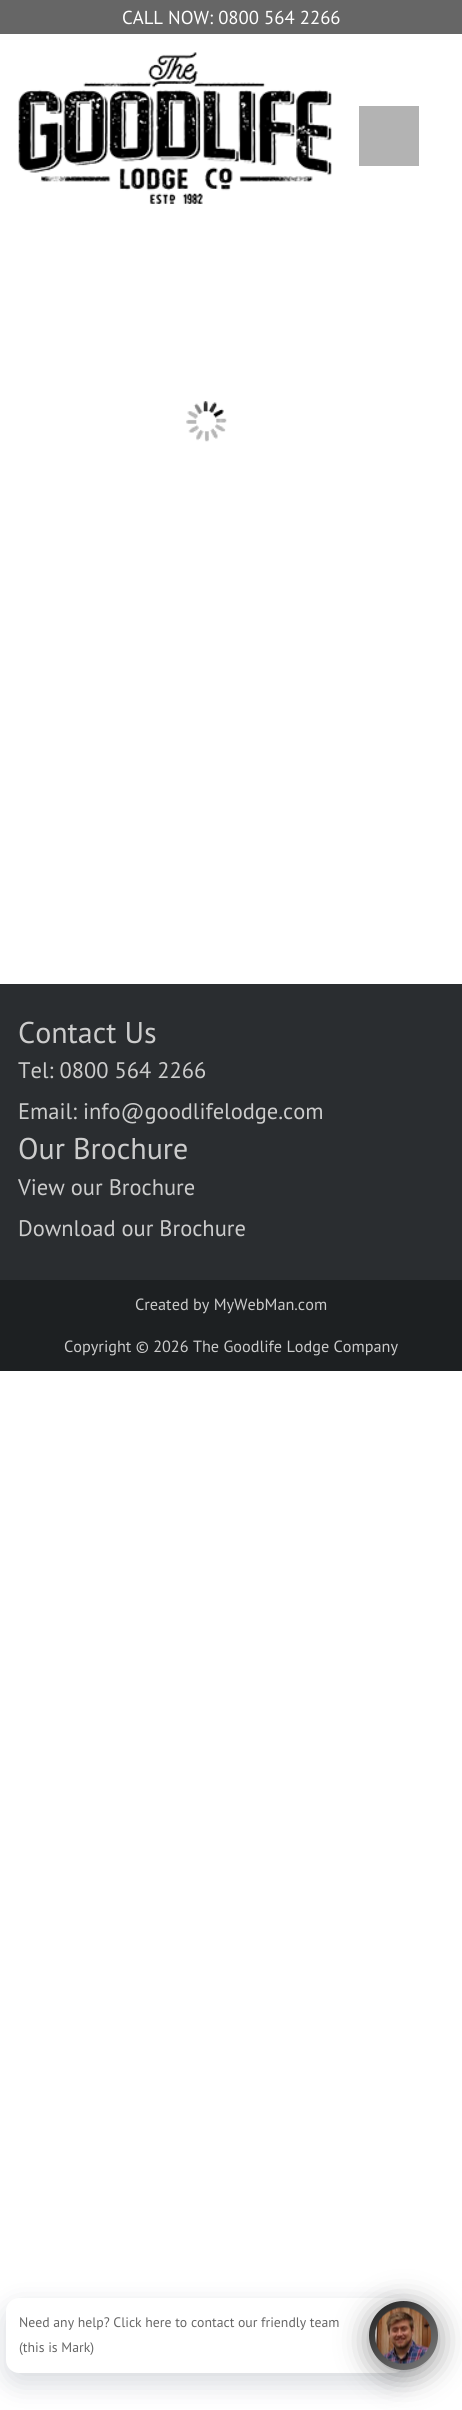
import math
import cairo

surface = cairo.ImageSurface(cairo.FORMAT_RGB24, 462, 2410)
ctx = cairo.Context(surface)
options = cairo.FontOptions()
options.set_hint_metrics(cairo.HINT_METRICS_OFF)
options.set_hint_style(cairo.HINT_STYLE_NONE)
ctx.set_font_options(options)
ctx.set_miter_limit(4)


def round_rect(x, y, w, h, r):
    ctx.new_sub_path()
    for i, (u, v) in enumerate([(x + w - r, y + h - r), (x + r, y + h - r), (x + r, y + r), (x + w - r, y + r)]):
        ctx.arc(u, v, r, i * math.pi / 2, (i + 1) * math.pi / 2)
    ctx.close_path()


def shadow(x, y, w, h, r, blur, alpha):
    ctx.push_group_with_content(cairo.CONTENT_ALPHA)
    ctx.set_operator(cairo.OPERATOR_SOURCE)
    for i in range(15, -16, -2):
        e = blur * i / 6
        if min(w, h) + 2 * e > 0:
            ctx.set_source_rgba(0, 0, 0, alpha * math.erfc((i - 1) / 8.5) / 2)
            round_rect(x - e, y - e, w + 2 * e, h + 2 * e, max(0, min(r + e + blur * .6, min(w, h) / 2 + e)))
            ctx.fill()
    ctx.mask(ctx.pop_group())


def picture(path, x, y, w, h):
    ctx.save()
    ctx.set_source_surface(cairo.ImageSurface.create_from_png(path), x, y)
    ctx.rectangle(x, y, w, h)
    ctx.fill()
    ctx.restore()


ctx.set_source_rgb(1, 1, 1)
ctx.paint()
ctx.set_source_rgb(0.4, 0.4, 0.4)
ctx.rectangle(0, 0, 462, 34)
ctx.fill()
ctx.select_font_face("PT Sans")
ctx.set_font_size(18.75)
ctx.set_source_rgb(1, 1, 1)
ctx.move_to(122, 24)
ctx.show_text("CALL NOW: 0800 564 2266")
picture("img1.png", 18, 52, 314, 152)
ctx.set_source_rgb(0.702, 0.702, 0.702)
ctx.rectangle(359, 106, 60, 60)
ctx.fill()
picture("img2.png", 186, 401, 41, 41)
ctx.set_source_rgb(0.165, 0.176, 0.188)
ctx.rectangle(0, 984, 462, 296)
ctx.fill()
ctx.set_font_size(30)
ctx.set_source_rgb(0.8, 0.8, 0.8)
ctx.move_to(18, 1043)
ctx.show_text("Contact Us")
ctx.set_font_size(22.5)
ctx.move_to(18, 1078)
ctx.show_text("Tel: 0800 564 2266")
ctx.move_to(18, 1119)
ctx.show_text("Email: info@goodlifelodge.com")
ctx.set_font_size(30)
ctx.move_to(18, 1159)
ctx.show_text("Our Brochure")
ctx.set_font_size(22.5)
ctx.move_to(18, 1195)
ctx.show_text("View our Brochure")
ctx.move_to(18, 1236)
ctx.show_text("Download our Brochure")
ctx.set_source_rgb(0.114, 0.125, 0.133)
ctx.rectangle(0, 1280, 462, 91)
ctx.fill()
ctx.set_font_size(16.25)
ctx.set_source_rgb(0.8, 0.8, 0.8)
ctx.move_to(135, 1310)
ctx.show_text("Created by MyWebMan.com")
ctx.move_to(64, 1352)
ctx.show_text("Copyright © 2026 The Goodlife Lodge Company")
ctx.set_source_rgb(0, 0.071, 0.18)
shadow(6, 2308, 400, 75, 13, 14, 0.16)
ctx.set_source_rgb(1, 1, 1)
round_rect(6, 2298, 400, 75, 13)
ctx.fill()
ctx.set_font_size(13.75)
ctx.set_source_rgb(0.4, 0.4, 0.4)
ctx.move_to(19, 2327)
ctx.show_text("Need any help? Click here to contact our friendly team")
ctx.move_to(19, 2352)
ctx.show_text("(this is Mark)")
ctx.set_source_rgb(0.169, 0.169, 0.169)
shadow(369, 2306, 69, 69, 34.5, 15, 0.5)
gradient = cairo.LinearGradient(434, 2373, 372, 2299)
gradient.add_color_stop_rgba(0, 0.494, 0.494, 0.494, 1)
gradient.add_color_stop_rgba(1, 0.125, 0.125, 0.125, 1)
ctx.set_source(gradient)
ctx.arc(403.5, 2335.5, 34.5, 0, 2 * math.pi)
ctx.fill()
picture("img3.png", 375, 2307, 56, 57)
surface.write_to_png("page.png")
